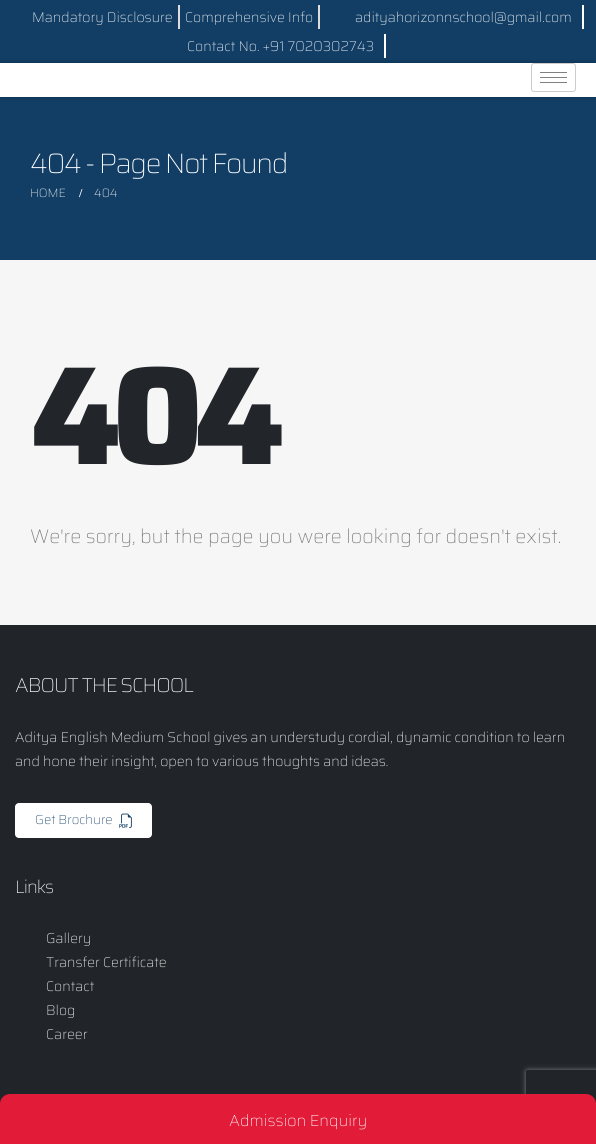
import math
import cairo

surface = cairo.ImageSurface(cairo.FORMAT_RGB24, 596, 1144)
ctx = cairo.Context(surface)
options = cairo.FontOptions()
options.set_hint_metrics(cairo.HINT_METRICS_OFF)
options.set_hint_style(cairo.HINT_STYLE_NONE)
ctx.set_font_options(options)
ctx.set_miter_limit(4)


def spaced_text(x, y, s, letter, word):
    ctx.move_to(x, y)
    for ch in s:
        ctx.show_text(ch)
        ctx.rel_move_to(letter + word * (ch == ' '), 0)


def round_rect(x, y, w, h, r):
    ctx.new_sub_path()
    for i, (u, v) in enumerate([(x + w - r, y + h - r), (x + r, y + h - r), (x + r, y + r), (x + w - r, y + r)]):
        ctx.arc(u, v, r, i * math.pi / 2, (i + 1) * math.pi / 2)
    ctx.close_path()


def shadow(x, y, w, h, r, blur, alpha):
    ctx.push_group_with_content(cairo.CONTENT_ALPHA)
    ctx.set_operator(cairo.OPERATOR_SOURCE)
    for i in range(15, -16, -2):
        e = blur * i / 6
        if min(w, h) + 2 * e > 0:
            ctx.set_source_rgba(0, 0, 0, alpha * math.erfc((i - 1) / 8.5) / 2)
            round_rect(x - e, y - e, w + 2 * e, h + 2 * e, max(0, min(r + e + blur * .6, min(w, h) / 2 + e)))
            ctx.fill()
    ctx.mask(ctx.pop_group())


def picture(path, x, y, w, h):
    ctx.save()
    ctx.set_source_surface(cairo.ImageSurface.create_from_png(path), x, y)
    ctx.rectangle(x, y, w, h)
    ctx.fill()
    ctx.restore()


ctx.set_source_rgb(0.961, 0.961, 0.961)
ctx.paint()
ctx.set_source_rgb(0.071, 0.243, 0.396)
ctx.rectangle(0, 0, 596, 63)
ctx.fill()
ctx.set_source_rgb(1, 1, 1)
ctx.rectangle(582, 5, 2, 24)
ctx.fill()
ctx.select_font_face("Saira Thin")
ctx.set_font_size(14)
ctx.move_to(32, 22)
ctx.show_text("Mandatory Disclosure")
ctx.set_source_rgb(0.867, 0.867, 0.867)
ctx.rectangle(178, 5, 2, 24)
ctx.fill()
ctx.set_source_rgb(1, 1, 1)
ctx.move_to(185, 22)
ctx.show_text("Comprehensive Info")
ctx.set_source_rgb(0.867, 0.867, 0.867)
ctx.rectangle(318, 5, 2, 24)
ctx.fill()
ctx.set_source_rgb(1, 1, 1)
ctx.move_to(355, 22)
ctx.show_text("adityahorizonnschool@gmail.com")
ctx.rectangle(384, 34, 2, 24)
ctx.fill()
ctx.move_to(187, 51)
ctx.show_text("Contact No. +91 7020302743")
ctx.set_source_rgb(0.071, 0.243, 0.396)
ctx.rectangle(0, 97, 596, 163)
ctx.fill()
ctx.set_source_rgb(0, 0, 0)
shadow(0, 63, 596, 34, 0, 2.5, 0.25)
ctx.set_source_rgb(1, 1, 1)
ctx.rectangle(0, 63, 596, 34)
ctx.fill()
round_rect(531.5, 63.5, 44, 28, 2.5)
ctx.set_source_rgb(0.8, 0.8, 0.8)
ctx.set_line_width(1)
ctx.stroke()
ctx.set_source_rgb(0.502, 0.502, 0.502)
ctx.rectangle(540, 72, 27, 1)
ctx.fill()
ctx.rectangle(540, 77, 27, 1)
ctx.fill()
ctx.rectangle(540, 82, 27, 1)
ctx.fill()
ctx.set_font_size(28)
ctx.set_source_rgb(1, 1, 1)
spaced_text(30, 173, "404 - Page Not Found", -1.4, 0)
ctx.set_font_size(12)
ctx.move_to(30, 197)
ctx.show_text("HOME")
ctx.select_font_face("Liberation Serif", cairo.FONT_SLANT_NORMAL, cairo.FONT_WEIGHT_BOLD)
ctx.move_to(79, 197)
ctx.show_text("/")
ctx.select_font_face("Saira Thin")
ctx.move_to(94, 197)
ctx.show_text("404")
ctx.select_font_face("Saira ExtraBold")
ctx.set_font_size(140)
ctx.set_source_rgb(0.133, 0.145, 0.161)
spaced_text(30, 464, "404", -10, 0)
ctx.select_font_face("Saira Thin")
ctx.set_font_size(19.6)
ctx.set_source_rgb(0.467, 0.467, 0.467)
ctx.move_to(30, 543)
ctx.show_text("We're sorry, but the page you were looking for doesn't exist.")
ctx.set_source_rgb(0.129, 0.145, 0.161)
ctx.rectangle(0, 625, 596, 479)
ctx.fill()
ctx.set_font_size(20)
ctx.set_source_rgb(1, 1, 1)
spaced_text(15, 692, "ABOUT THE SCHOOL", -1, 0)
ctx.set_font_size(14)
ctx.move_to(15, 742)
ctx.show_text("Aditya English Medium School gives an understudy cordial, dynamic condition to learn")
ctx.move_to(15, 766)
ctx.show_text("and hone their insight, open to various thoughts and ideas.")
round_rect(15, 803, 137, 35, 4)
ctx.fill()
ctx.set_font_size(13)
ctx.set_source_rgb(0.071, 0.243, 0.396)
ctx.move_to(35, 824)
ctx.show_text("Get Brochure")
picture("img1.png", 119, 813, 13, 15)
ctx.set_font_size(18)
ctx.set_source_rgb(1, 1, 1)
spaced_text(15, 893, "Links", -1, 0)
ctx.set_font_size(14)
ctx.move_to(46, 943)
ctx.show_text("Gallery")
ctx.move_to(46, 967)
ctx.show_text("Transfer Certificate")
ctx.move_to(46, 991)
ctx.show_text("Contact")
ctx.move_to(46, 1015)
ctx.show_text("Blog")
ctx.move_to(46, 1039)
ctx.show_text("Career")
ctx.save()
ctx.set_fill_rule(cairo.FILL_RULE_EVEN_ODD)
ctx.new_path()
ctx.move_to(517, 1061)
ctx.line_to(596, 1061)
ctx.line_to(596, 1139)
ctx.line_to(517, 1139)
ctx.close_path()
ctx.move_to(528, 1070)
ctx.line_to(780, 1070)
ctx.curve_to(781, 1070, 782, 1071, 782, 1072)
ctx.line_to(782, 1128)
ctx.curve_to(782, 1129, 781, 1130, 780, 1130)
ctx.line_to(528, 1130)
ctx.curve_to(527, 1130, 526, 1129, 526, 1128)
ctx.line_to(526, 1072)
ctx.curve_to(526, 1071, 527, 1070, 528, 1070)
ctx.close_path()
ctx.clip()
ctx.set_source_rgb(0.502, 0.502, 0.502)
shadow(526, 1070, 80, 60, 2, 2.5, 1)
ctx.restore()
ctx.set_source_rgb(0.886, 0.106, 0.22)
ctx.new_path()
ctx.move_to(10, 1094)
ctx.line_to(586, 1094)
ctx.curve_to(591.5, 1094, 596, 1098.5, 596, 1104)
ctx.line_to(596, 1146)
ctx.line_to(0, 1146)
ctx.line_to(0, 1104)
ctx.curve_to(0, 1098.5, 4.5, 1094, 10, 1094)
ctx.close_path()
ctx.fill()
ctx.set_font_size(16)
ctx.set_source_rgb(1, 1, 1)
ctx.move_to(229, 1126)
ctx.show_text("Admission Enquiry")
surface.write_to_png("page.png")
